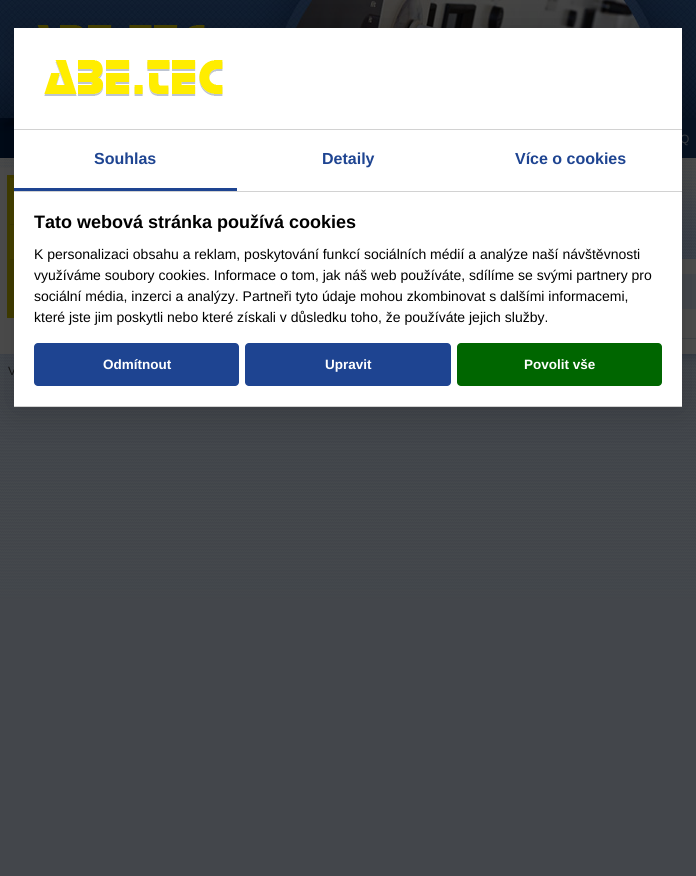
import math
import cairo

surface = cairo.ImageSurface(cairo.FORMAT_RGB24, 696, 876)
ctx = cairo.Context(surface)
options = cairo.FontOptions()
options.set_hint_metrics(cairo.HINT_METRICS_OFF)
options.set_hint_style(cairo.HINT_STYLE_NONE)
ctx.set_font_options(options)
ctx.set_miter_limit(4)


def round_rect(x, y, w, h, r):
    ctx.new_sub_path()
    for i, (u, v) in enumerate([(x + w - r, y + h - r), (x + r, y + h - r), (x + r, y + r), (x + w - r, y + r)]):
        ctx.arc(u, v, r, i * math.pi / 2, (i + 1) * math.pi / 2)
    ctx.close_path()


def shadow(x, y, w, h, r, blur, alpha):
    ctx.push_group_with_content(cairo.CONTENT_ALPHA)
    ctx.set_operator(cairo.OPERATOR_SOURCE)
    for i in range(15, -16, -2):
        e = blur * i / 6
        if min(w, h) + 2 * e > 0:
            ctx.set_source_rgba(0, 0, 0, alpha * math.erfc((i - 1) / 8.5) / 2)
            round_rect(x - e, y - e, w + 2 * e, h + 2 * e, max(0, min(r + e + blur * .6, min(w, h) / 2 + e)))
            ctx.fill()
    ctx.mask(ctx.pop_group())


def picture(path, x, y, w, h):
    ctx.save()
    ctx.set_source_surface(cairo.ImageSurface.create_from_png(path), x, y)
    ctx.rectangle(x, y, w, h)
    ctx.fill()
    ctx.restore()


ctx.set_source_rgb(0.263, 0.275, 0.294)
ctx.paint()
picture("img1.png", 0, 158, 696, 442)
picture("img2.png", 0, 0, 249, 158)
picture("img3.png", 37, 25, 168, 3)
picture("img4.png", 249, 0, 447, 158)
ctx.select_font_face("Liberation Sans")
ctx.set_font_size(12)
ctx.set_source_rgb(0.22, 0.239, 0.263)
ctx.move_to(680, 143)
ctx.show_text("Q")
ctx.set_source_rgb(0.302, 0.302, 0.302)
ctx.rectangle(0, 168, 696, 186)
ctx.fill()
ctx.set_source_rgb(0.259, 0.239, 0)
ctx.rectangle(7, 175, 7, 143)
ctx.fill()
picture("img5.png", 10, 178, 4, 46)
picture("img6.png", 10, 225, 4, 34)
picture("img7.png", 682, 168, 14, 91)
ctx.rectangle(269.5, 274.5, 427, 34)
ctx.set_source_rgb(0.271, 0.282, 0.302)
ctx.set_line_width(1)
ctx.stroke()
ctx.rectangle(682, 275, 14, 33)
ctx.fill()
ctx.set_source_rgb(0.255, 0.267, 0.278)
ctx.rectangle(682, 338, 14, 1)
ctx.fill()
picture("img8.png", 682, 354, 14, 12)
ctx.set_source_rgb(0.078, 0.078, 0.078)
ctx.move_to(8, 375)
ctx.show_text("V")
ctx.set_source_rgb(0, 0, 0)
shadow(14, 28, 668, 379, 0, 20, 0.2)
ctx.set_source_rgb(1, 1, 1)
ctx.rectangle(14, 28, 668, 378)
ctx.fill()
ctx.set_source_rgb(0.824, 0.824, 0.824)
ctx.rectangle(14, 129, 668, 1)
ctx.fill()
picture("img9.png", 44, 60, 179, 36)
ctx.rectangle(14, 191, 668, 1)
ctx.fill()
ctx.set_source_rgb(0.118, 0.267, 0.569)
ctx.rectangle(14, 188, 223, 3)
ctx.fill()
ctx.select_font_face("Liberation Sans", cairo.FONT_SLANT_NORMAL, cairo.FONT_WEIGHT_BOLD)
ctx.set_font_size(16)
ctx.move_to(94, 164)
ctx.show_text("Souhlas")
ctx.move_to(322, 164)
ctx.show_text("Detaily")
ctx.move_to(515, 164)
ctx.show_text("Více o cookies")
ctx.set_source_rgb(0.824, 0.824, 0.824)
ctx.rectangle(14, 406, 668, 1)
ctx.fill()
ctx.set_font_size(18)
ctx.set_source_rgb(0, 0, 0)
ctx.move_to(34, 228)
ctx.show_text("Tato webová stránka používá cookies")
ctx.select_font_face("Liberation Sans")
ctx.set_font_size(14)
ctx.move_to(34, 259)
ctx.show_text("K personalizaci obsahu a reklam, poskytování funkcí sociálních médií a analýze naší návštěvnosti")
ctx.move_to(34, 280)
ctx.show_text("využíváme soubory cookies. Informace o tom, jak náš web používáte, sdílíme se svými partnery pro")
ctx.move_to(34, 301)
ctx.show_text("sociální média, inzerci a analýzy. Partneři tyto údaje mohou zkombinovat s dalšími informacemi,")
ctx.move_to(34, 322)
ctx.show_text("které jste jim poskytli nebo které získali v důsledku toho, že používáte jejich služby.")
ctx.set_source_rgb(0.118, 0.267, 0.569)
round_rect(34, 343, 205, 43, 4)
ctx.fill()
ctx.select_font_face("Liberation Sans", cairo.FONT_SLANT_NORMAL, cairo.FONT_WEIGHT_BOLD)
ctx.set_font_size(13.5)
ctx.set_source_rgb(1, 1, 1)
ctx.move_to(103, 369)
ctx.show_text("Odmítnout")
ctx.set_source_rgb(0.118, 0.267, 0.569)
round_rect(245, 343, 206, 43, 4)
ctx.fill()
ctx.set_source_rgb(1, 1, 1)
ctx.move_to(325, 369)
ctx.show_text("Upravit")
ctx.set_source_rgb(0, 0.4, 0)
round_rect(457, 343, 205, 43, 4)
ctx.fill()
ctx.set_source_rgb(1, 1, 1)
ctx.move_to(524, 369)
ctx.show_text("Povolit vše")
surface.write_to_png("page.png")
